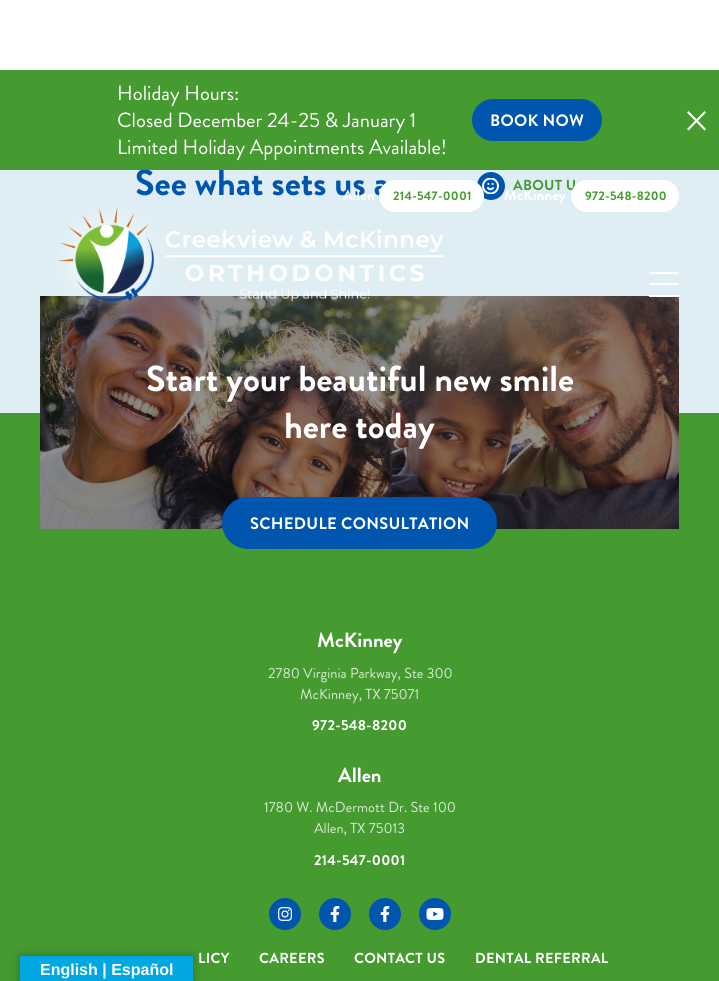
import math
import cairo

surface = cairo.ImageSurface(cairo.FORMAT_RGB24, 719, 981)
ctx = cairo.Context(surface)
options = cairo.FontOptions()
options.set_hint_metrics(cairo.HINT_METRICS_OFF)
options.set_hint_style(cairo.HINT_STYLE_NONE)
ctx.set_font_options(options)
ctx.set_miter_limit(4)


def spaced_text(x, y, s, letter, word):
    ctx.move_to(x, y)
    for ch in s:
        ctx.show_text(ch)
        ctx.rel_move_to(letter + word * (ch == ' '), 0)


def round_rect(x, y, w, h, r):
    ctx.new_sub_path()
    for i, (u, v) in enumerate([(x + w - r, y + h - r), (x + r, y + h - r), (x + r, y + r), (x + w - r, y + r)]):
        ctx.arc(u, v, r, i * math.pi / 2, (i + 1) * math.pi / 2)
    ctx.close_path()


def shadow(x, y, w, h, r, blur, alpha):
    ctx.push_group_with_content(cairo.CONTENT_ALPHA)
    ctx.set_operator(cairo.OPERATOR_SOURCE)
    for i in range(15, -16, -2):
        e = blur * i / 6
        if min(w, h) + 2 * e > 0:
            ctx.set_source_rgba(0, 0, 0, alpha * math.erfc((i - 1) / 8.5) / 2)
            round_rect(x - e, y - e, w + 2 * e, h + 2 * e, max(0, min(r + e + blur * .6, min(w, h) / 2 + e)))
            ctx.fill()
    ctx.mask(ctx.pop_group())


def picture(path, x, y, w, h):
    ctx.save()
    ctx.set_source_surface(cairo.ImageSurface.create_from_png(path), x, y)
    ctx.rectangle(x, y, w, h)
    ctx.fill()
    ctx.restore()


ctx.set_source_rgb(1, 1, 1)
ctx.paint()
ctx.set_source_rgb(0.871, 0.933, 0.957)
ctx.rectangle(0, 170, 719, 243)
ctx.fill()
ctx.select_font_face("Brandon Grotesque", cairo.FONT_SLANT_NORMAL, cairo.FONT_WEIGHT_BOLD)
ctx.set_font_size(36.1)
ctx.set_source_rgb(0, 0.333, 0.686)
ctx.move_to(135, 195)
ctx.show_text("See what sets us a")
ctx.set_source_rgb(0.271, 0.604, 0.188)
ctx.rectangle(0, 70, 719, 100)
ctx.fill()
ctx.select_font_face("Brandon Grotesque")
ctx.set_font_size(20.6)
ctx.set_source_rgb(1, 1, 1)
ctx.move_to(117, 100)
ctx.show_text("Holiday Hours:")
ctx.move_to(117, 127)
ctx.show_text("Closed December 24-25 & January 1")
ctx.move_to(117, 154)
ctx.show_text("Limited Holiday Appointments Available!")
ctx.set_source_rgb(0, 0.333, 0.686)
round_rect(472, 99, 130, 42, 21)
ctx.fill()
ctx.select_font_face("Brandon Grotesque", cairo.FONT_SLANT_NORMAL, cairo.FONT_WEIGHT_BOLD)
ctx.set_font_size(16.5)
ctx.set_source_rgb(1, 1, 1)
spaced_text(490, 126, "BOOK NOW", 0.3, 0)
ctx.new_path()
ctx.move_to(687, 129)
ctx.line_to(704.5, 111)
ctx.line_to(706, 112.5)
ctx.line_to(688.5, 130.5)
ctx.close_path()
ctx.fill()
ctx.new_path()
ctx.move_to(688.5, 111)
ctx.line_to(706, 129)
ctx.line_to(704.5, 130.5)
ctx.line_to(687, 112.5)
ctx.close_path()
ctx.fill()
ctx.set_font_size(14.5)
spaced_text(343, 200, "Allen", 0.25, 0)
ctx.set_source_rgb(0.271, 0.604, 0.188)
ctx.rectangle(0, 413, 719, 568)
ctx.fill()
picture("img3.png", 40, 296, 639, 233)
picture("img1.png", 57, 207, 387, 112)
ctx.set_source_rgb(0, 0.333, 0.686)
ctx.arc(491, 186, 14, 0, 2 * math.pi)
ctx.fill()
picture("img2.png", 482, 178, 17, 16)
ctx.set_source_rgb(1, 1, 1)
round_rect(379, 180, 105, 32, 16)
ctx.fill()
ctx.set_font_size(12.5)
ctx.set_source_rgb(0.271, 0.604, 0.188)
spaced_text(393, 200, "214-547-0001", 0.25, 0)
ctx.set_font_size(14.5)
ctx.set_source_rgb(1, 1, 1)
spaced_text(504, 200, "McKinney", 0.25, 0)
ctx.set_source_rgb(0.271, 0.604, 0.188)
spaced_text(513, 190, "ABOUT U", 0.3, 0)
ctx.set_source_rgb(1, 1, 1)
round_rect(571, 180, 108, 32, 16)
ctx.fill()
ctx.set_font_size(12.5)
ctx.set_source_rgb(0.271, 0.604, 0.188)
spaced_text(585, 200, "972-548-8200", 0.25, 0)
ctx.set_source_rgb(1, 1, 1)
ctx.rectangle(649, 272, 30, 2)
ctx.fill()
ctx.rectangle(649, 283, 30, 2)
ctx.fill()
ctx.rectangle(649, 295, 30, 2)
ctx.fill()
ctx.set_font_size(36.1)
ctx.move_to(146, 391)
ctx.show_text("Start your beautiful new smile")
ctx.move_to(284, 438)
ctx.show_text("here today")
ctx.set_source_rgb(0, 0.333, 0.686)
round_rect(222, 497, 275, 52, 26)
ctx.fill()
ctx.set_font_size(16.5)
ctx.set_source_rgb(1, 1, 1)
spaced_text(250, 529, "SCHEDULE CONSULTATION", 0.3, 0)
ctx.set_font_size(20.6)
ctx.move_to(317, 647)
ctx.show_text("McKinney")
ctx.select_font_face("Brandon Grotesque")
ctx.set_font_size(14.5)
ctx.set_source_rgb(0.855, 0.922, 0.839)
ctx.move_to(268, 678)
ctx.show_text("2780 Virginia Parkway, Ste 300")
ctx.move_to(300, 699)
ctx.show_text("McKinney, TX 75071")
ctx.select_font_face("Brandon Grotesque", cairo.FONT_SLANT_NORMAL, cairo.FONT_WEIGHT_BOLD)
ctx.set_source_rgb(1, 1, 1)
spaced_text(312, 730, "972-548-8200", 0.3, 0)
ctx.set_font_size(20.6)
ctx.move_to(338, 782)
ctx.show_text("Allen")
ctx.select_font_face("Brandon Grotesque")
ctx.set_font_size(14.5)
ctx.set_source_rgb(0.855, 0.922, 0.839)
ctx.move_to(264, 812)
ctx.show_text("1780 W. McDermott Dr. Ste 100")
ctx.move_to(314, 833)
ctx.show_text("Allen, TX 75013")
ctx.select_font_face("Brandon Grotesque", cairo.FONT_SLANT_NORMAL, cairo.FONT_WEIGHT_BOLD)
ctx.set_source_rgb(1, 1, 1)
spaced_text(314, 865, "214-547-0001", 0.3, 0)
ctx.set_source_rgb(0, 0.333, 0.686)
ctx.new_path()
ctx.arc(285, 914, 16, 0, 2 * math.pi)
ctx.fill()
picture("img4.png", 278, 907, 14, 14)
ctx.arc(335, 914, 16, 0, 2 * math.pi)
ctx.fill()
picture("img5.png", 330, 906, 10, 16)
ctx.arc(385, 914, 16, 0, 2 * math.pi)
ctx.fill()
picture("img5.png", 380, 906, 10, 16)
ctx.arc(435, 914, 16, 0, 2 * math.pi)
ctx.fill()
picture("img6.png", 426, 908, 18, 12)
ctx.set_source_rgb(1, 1, 1)
spaced_text(198, 963, "LICY", 0.3, 0)
spaced_text(259, 963, "CAREERS", 0.3, 0)
spaced_text(354, 963, "CONTACT US", 0.3, 0)
spaced_text(475, 963, "DENTAL REFERRAL", 0.3, 0)
ctx.set_source_rgb(0, 0, 0)
shadow(20, 956, 173, 25, 0, 4.5, 0.3)
ctx.set_source_rgb(0, 0.655, 0.878)
ctx.rectangle(20, 956, 173, 25)
ctx.fill()
ctx.select_font_face("Liberation Sans", cairo.FONT_SLANT_NORMAL, cairo.FONT_WEIGHT_BOLD)
ctx.set_font_size(16)
ctx.set_source_rgb(1, 1, 1)
ctx.move_to(40, 975)
ctx.show_text("English | Español")
surface.write_to_png("page.png")
